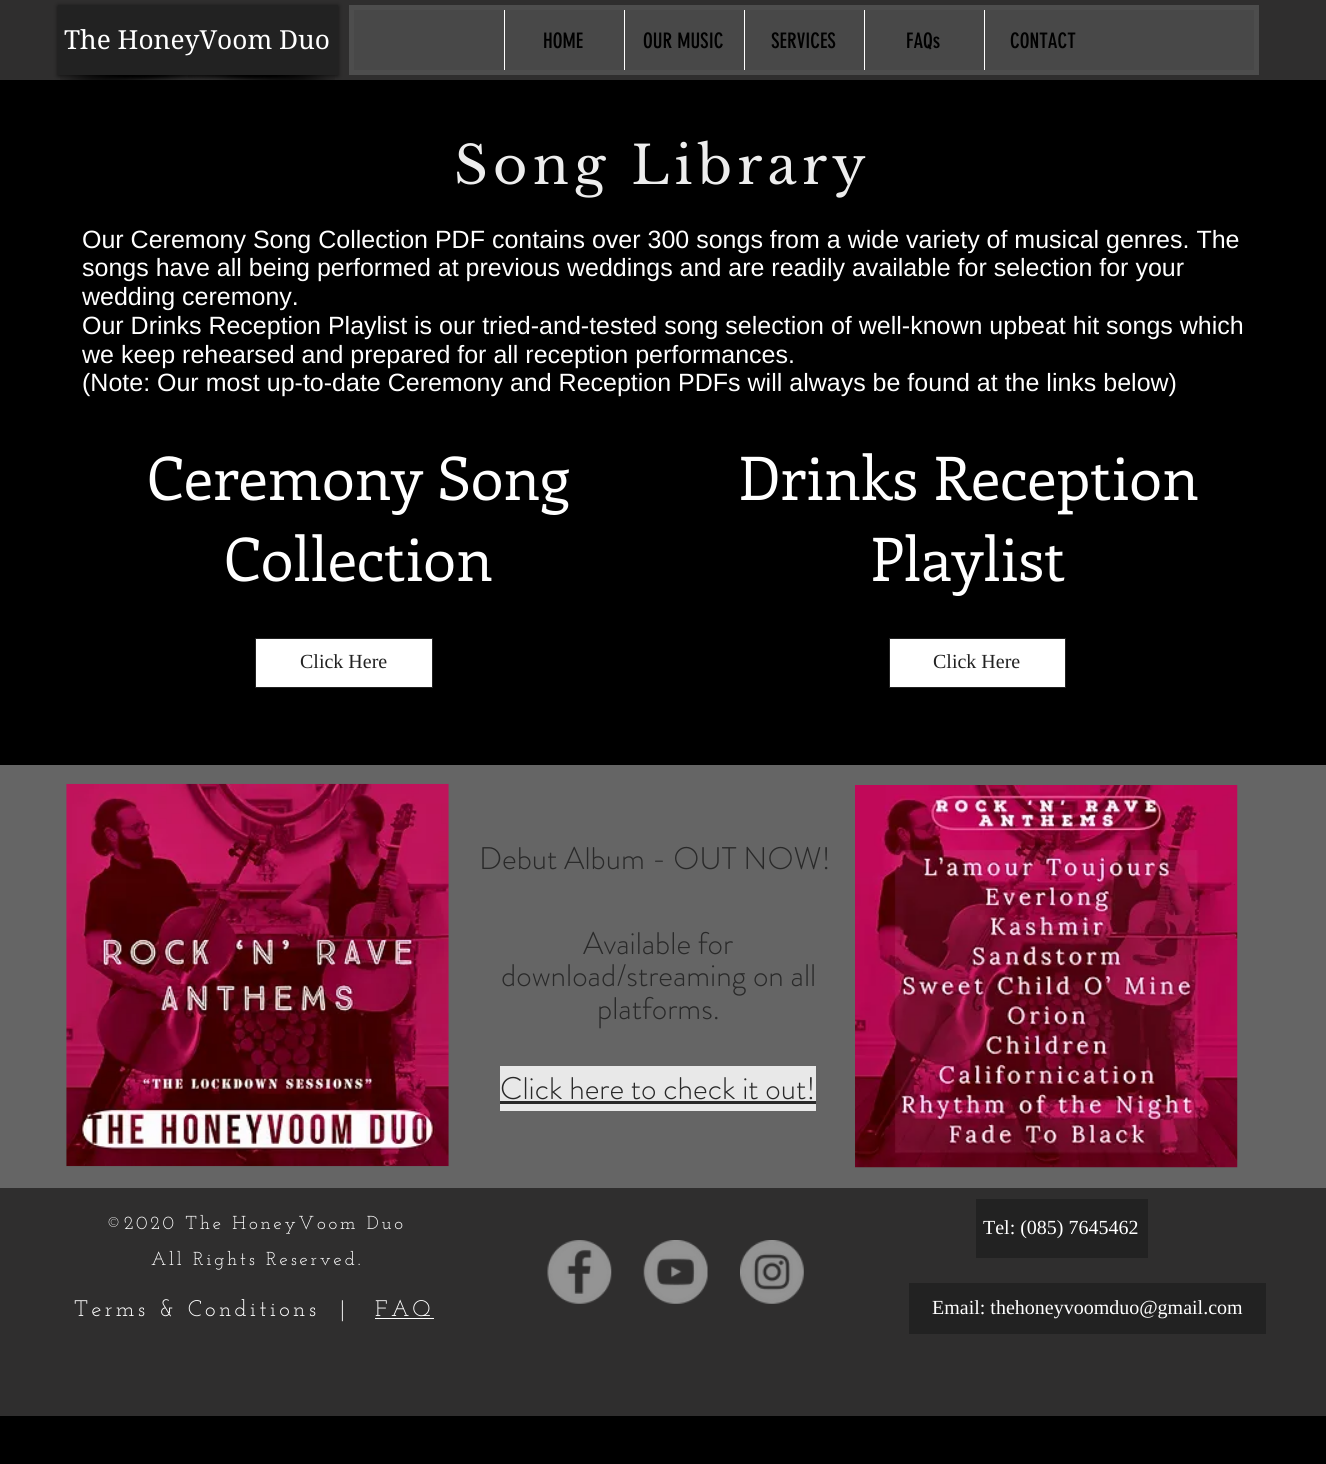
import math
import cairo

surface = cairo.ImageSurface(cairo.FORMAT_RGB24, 1326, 1464)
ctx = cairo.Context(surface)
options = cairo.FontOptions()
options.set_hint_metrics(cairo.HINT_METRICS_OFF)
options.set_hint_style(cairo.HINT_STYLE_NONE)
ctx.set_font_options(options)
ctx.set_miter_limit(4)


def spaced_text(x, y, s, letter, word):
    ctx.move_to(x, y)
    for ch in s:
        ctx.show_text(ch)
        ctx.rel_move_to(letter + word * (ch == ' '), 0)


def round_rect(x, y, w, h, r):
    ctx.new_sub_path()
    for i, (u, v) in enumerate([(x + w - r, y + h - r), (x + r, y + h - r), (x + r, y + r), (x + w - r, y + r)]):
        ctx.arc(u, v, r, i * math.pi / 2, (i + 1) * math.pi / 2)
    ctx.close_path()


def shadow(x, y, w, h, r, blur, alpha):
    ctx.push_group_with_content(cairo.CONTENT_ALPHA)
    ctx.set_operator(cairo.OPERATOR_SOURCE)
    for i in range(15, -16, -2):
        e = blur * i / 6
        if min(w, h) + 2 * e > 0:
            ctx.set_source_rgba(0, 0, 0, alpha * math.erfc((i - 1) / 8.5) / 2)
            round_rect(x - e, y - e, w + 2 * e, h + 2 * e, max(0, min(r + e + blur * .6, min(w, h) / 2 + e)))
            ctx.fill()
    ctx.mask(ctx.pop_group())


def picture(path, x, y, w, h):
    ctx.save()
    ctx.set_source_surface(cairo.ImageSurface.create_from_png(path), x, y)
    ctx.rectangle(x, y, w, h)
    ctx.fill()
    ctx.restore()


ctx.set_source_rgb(0, 0, 0)
ctx.paint()
ctx.set_source_rgb(0.184, 0.18, 0.18)
ctx.rectangle(0, 0, 1326, 80)
ctx.fill()
picture("img1.png", 60, 75, 154, 5)
picture("img2.png", 188, 75, 147, 5)
ctx.set_source_rgb(0, 0, 0)
shadow(58, 6, 280, 70, 0, 2.5, 0.6)
ctx.set_source_rgb(0.133, 0.133, 0.133)
ctx.rectangle(58, 5, 280, 70)
ctx.fill()
ctx.select_font_face("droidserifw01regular")
ctx.set_font_size(26.25)
ctx.set_source_rgb(1, 1, 1)
ctx.move_to(64, 49)
ctx.show_text("The HoneyVoom Duo")
ctx.set_source_rgb(0.282, 0.282, 0.282)
ctx.rectangle(351.5, 7.5, 905, 65)
ctx.fill_preserve()
ctx.set_source_rgb(0.302, 0.302, 0.302)
ctx.set_line_width(5)
ctx.stroke()
ctx.set_source_rgb(1, 1, 1)
ctx.rectangle(504, 10, 1, 60)
ctx.fill()
ctx.select_font_face("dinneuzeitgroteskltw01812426")
ctx.set_font_size(21)
ctx.set_source_rgb(0, 0, 0)
ctx.move_to(543, 48)
ctx.show_text("HOME")
ctx.set_source_rgb(1, 1, 1)
ctx.rectangle(624, 10, 1, 60)
ctx.fill()
ctx.set_source_rgb(0, 0, 0)
ctx.move_to(643, 48)
ctx.show_text("OUR MUSIC")
ctx.set_source_rgb(1, 1, 1)
ctx.rectangle(744, 10, 1, 60)
ctx.fill()
ctx.set_source_rgb(0, 0, 0)
ctx.move_to(771, 48)
ctx.show_text("SERVICES")
ctx.set_source_rgb(1, 1, 1)
ctx.rectangle(864, 10, 1, 60)
ctx.fill()
ctx.set_source_rgb(0, 0, 0)
ctx.move_to(906, 48)
ctx.show_text("FAQs")
ctx.set_source_rgb(1, 1, 1)
ctx.rectangle(984, 10, 1, 60)
ctx.fill()
ctx.set_source_rgb(0, 0, 0)
ctx.move_to(1010, 48)
ctx.show_text("CONTACT")
ctx.select_font_face("Libre Baskerville")
ctx.set_font_size(52.5)
ctx.set_source_rgb(0.929, 0.929, 0.929)
spaced_text(454, 184, "Song Library", 5.25, 0)
ctx.select_font_face("Liberation Sans")
ctx.set_font_size(25)
ctx.set_source_rgb(1, 1, 1)
ctx.move_to(82, 248)
ctx.show_text("Our Ceremony Song Collection PDF contains over 300 songs from a wide variety of musical genres. The")
ctx.move_to(82, 276)
ctx.show_text("songs have all being performed at previous weddings and are readily available for selection for your")
ctx.move_to(82, 305)
ctx.show_text("wedding ceremony.")
ctx.move_to(82, 334)
ctx.show_text("Our Drinks Reception Playlist is our tried-and-tested song selection of well-known upbeat hit songs which")
ctx.move_to(82, 363)
ctx.show_text("we keep rehearsed and prepared for all reception performances.")
ctx.move_to(82, 391)
ctx.show_text("(Note: Our most up-to-date Ceremony and Reception PDFs will always be found at the links below)")
ctx.select_font_face("Enriqueta")
ctx.set_font_size(60)
ctx.move_to(147, 500)
ctx.show_text("Ceremony Song")
ctx.move_to(224, 581)
ctx.show_text("Collection")
ctx.move_to(738, 500)
ctx.show_text("Drinks Reception")
ctx.move_to(870, 581)
ctx.show_text("Playlist")
ctx.rectangle(255.5, 638.5, 177, 49)
ctx.fill_preserve()
ctx.set_source_rgb(0.133, 0.133, 0.133)
ctx.set_line_width(1)
ctx.stroke()
ctx.select_font_face("Liberation Serif")
ctx.set_font_size(20)
ctx.move_to(300, 668)
ctx.show_text("Click Here")
ctx.set_source_rgb(1, 1, 1)
ctx.rectangle(889.5, 638.5, 176, 49)
ctx.fill_preserve()
ctx.set_source_rgb(0.133, 0.133, 0.133)
ctx.stroke()
ctx.move_to(933, 668)
ctx.show_text("Click Here")
ctx.set_source_rgb(0.396, 0.396, 0.396)
ctx.rectangle(0, 765, 1326, 423)
ctx.fill()
picture("img3.png", 66, 783, 383, 384)
ctx.select_font_face("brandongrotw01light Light")
ctx.set_font_size(31.25)
ctx.set_source_rgb(0.161, 0.161, 0.161)
ctx.move_to(479, 869)
ctx.show_text("Debut Album - OUT NOW!")
picture("img4.png", 855, 785, 383, 383)
ctx.move_to(583, 954)
ctx.show_text("Available for")
ctx.move_to(501, 986)
ctx.show_text("download/streaming on all")
ctx.move_to(597, 1019)
ctx.show_text("platforms.")
ctx.set_source_rgb(0.91, 0.91, 0.91)
ctx.rectangle(500, 1066, 316, 45)
ctx.fill()
ctx.set_source_rgb(0.161, 0.161, 0.161)
ctx.move_to(500, 1099)
ctx.show_text("Click here to check it out!")
ctx.rectangle(500, 1101, 316, 3)
ctx.fill()
ctx.set_source_rgb(0.184, 0.18, 0.18)
ctx.rectangle(0, 1188, 1326, 228)
ctx.fill()
ctx.select_font_face("Josefin Slab")
ctx.set_font_size(18.75)
ctx.set_source_rgb(1, 1, 1)
spaced_text(106, 1229, "©2020 The HoneyVoom Duo", 2.8, 0)
ctx.set_source_rgb(0.133, 0.133, 0.133)
ctx.rectangle(976, 1199, 172, 59)
ctx.fill()
ctx.select_font_face("Liberation Serif")
ctx.set_font_size(20)
ctx.set_source_rgb(1, 1, 1)
ctx.move_to(983, 1234)
ctx.show_text("Tel: (085) 7645462")
ctx.select_font_face("Josefin Slab")
ctx.set_font_size(18.75)
spaced_text(151, 1265, "All Rights Reserved.", 2.8, 0)
picture("img5.png", 547, 1240, 65, 64)
picture("img6.png", 643, 1240, 65, 64)
picture("img7.png", 740, 1240, 64, 64)
ctx.set_font_size(22.5)
spaced_text(74, 1316, "Terms & Conditions  |", 3.4, 0)
spaced_text(375, 1316, "FAQ", 3.4, 0)
ctx.rectangle(375, 1318, 59, 1)
ctx.fill()
ctx.set_source_rgb(0.133, 0.133, 0.133)
ctx.rectangle(909, 1283, 357, 51)
ctx.fill()
ctx.select_font_face("Liberation Serif")
ctx.set_font_size(20)
ctx.set_source_rgb(1, 1, 1)
ctx.move_to(932, 1314)
ctx.show_text("Email: thehoneyvoomduo@gmail.com")
surface.write_to_png("page.png")
